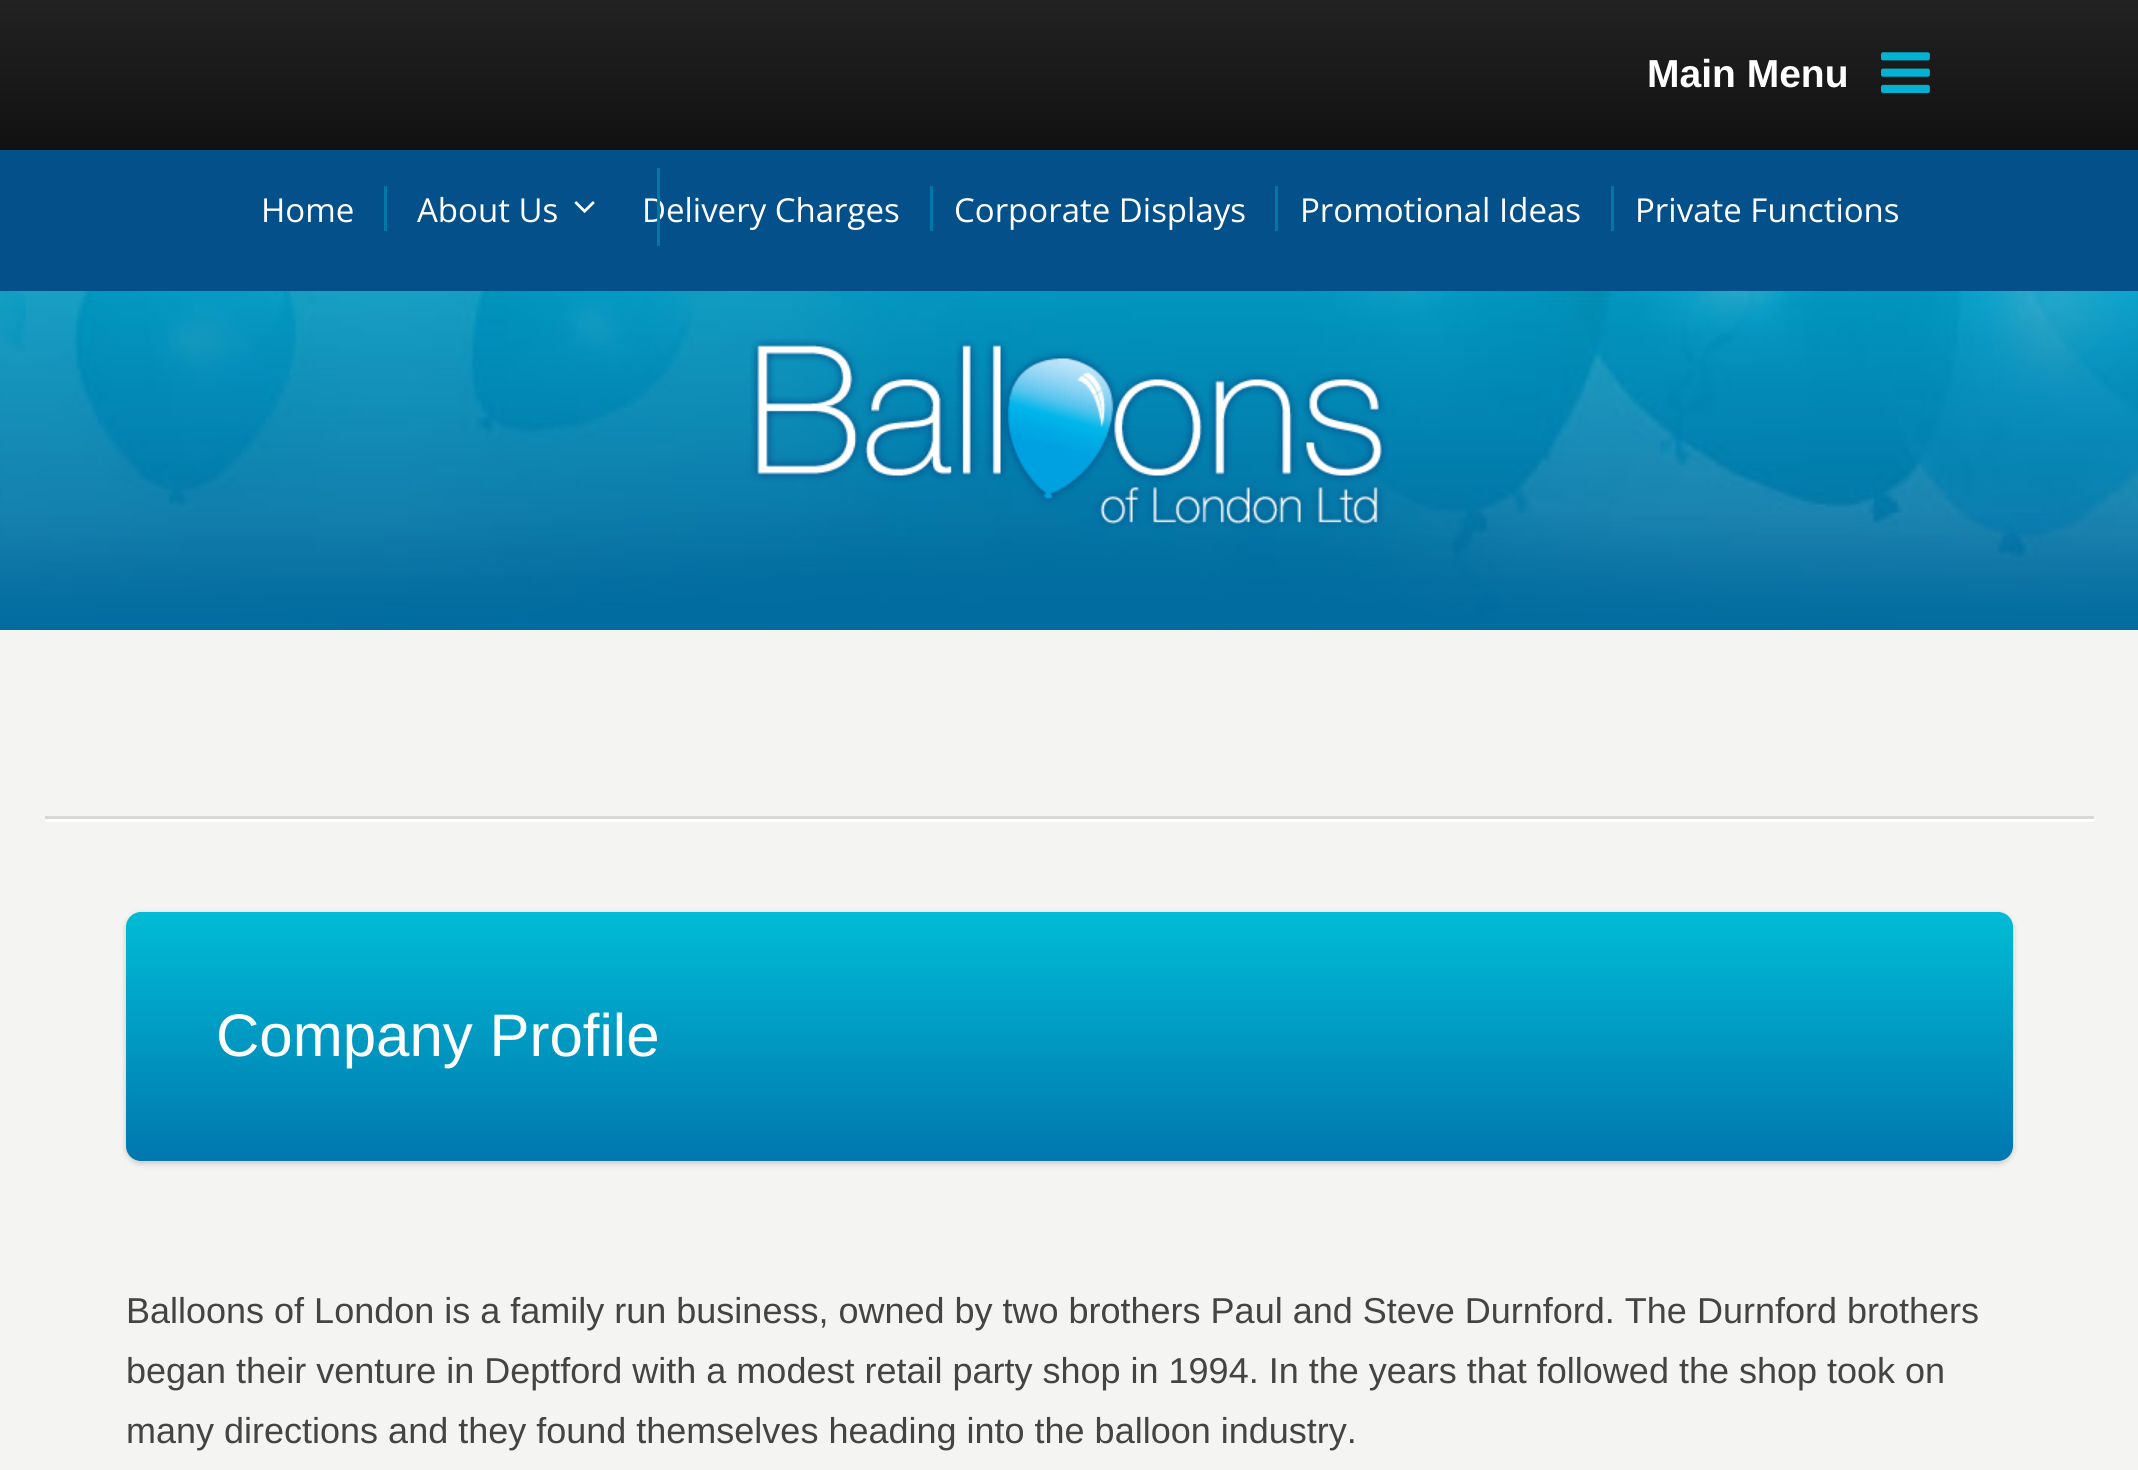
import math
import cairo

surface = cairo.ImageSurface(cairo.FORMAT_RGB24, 2138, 1470)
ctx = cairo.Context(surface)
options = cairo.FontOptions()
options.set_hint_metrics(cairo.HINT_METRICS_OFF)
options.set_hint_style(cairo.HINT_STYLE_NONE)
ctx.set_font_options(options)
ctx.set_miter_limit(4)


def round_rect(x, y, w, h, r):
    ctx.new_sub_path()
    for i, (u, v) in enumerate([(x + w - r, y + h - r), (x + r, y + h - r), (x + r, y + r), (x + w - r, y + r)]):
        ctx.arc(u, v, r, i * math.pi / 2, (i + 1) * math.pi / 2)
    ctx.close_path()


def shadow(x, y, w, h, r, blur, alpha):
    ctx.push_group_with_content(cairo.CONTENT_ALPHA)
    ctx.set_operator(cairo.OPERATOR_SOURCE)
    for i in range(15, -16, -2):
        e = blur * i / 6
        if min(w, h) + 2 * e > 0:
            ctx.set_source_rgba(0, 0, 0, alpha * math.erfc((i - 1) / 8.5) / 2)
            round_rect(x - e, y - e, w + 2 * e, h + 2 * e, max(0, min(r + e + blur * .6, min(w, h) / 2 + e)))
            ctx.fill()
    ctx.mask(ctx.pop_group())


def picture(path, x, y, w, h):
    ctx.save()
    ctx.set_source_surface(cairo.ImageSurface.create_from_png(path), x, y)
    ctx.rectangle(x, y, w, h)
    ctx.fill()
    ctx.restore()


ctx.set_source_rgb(0.957, 0.957, 0.949)
ctx.paint()
gradient = cairo.LinearGradient(1070, 0, 1070, 150)
gradient.add_color_stop_rgba(0, 0.133, 0.133, 0.133, 1)
gradient.add_color_stop_rgba(1, 0.067, 0.067, 0.067, 1)
ctx.set_source(gradient)
ctx.rectangle(0, 0, 2138, 150)
ctx.fill()
ctx.select_font_face("Liberation Sans", cairo.FONT_SLANT_NORMAL, cairo.FONT_WEIGHT_BOLD)
ctx.set_font_size(39)
ctx.set_source_rgb(1, 1, 1)
ctx.move_to(1647, 87)
ctx.show_text("Main Menu")
picture("img1.png", 1881, 52, 49, 41)
ctx.set_source_rgb(0.012, 0.314, 0.545)
ctx.rectangle(0, 150, 2138, 141)
ctx.fill()
ctx.select_font_face("Open Sans")
ctx.set_font_size(33)
ctx.set_source_rgb(1, 1, 1)
ctx.move_to(261, 222)
ctx.show_text("Home")
ctx.set_source_rgb(0.008, 0.471, 0.663)
ctx.rectangle(384, 186, 3, 45)
ctx.fill()
ctx.set_source_rgb(1, 1, 1)
ctx.move_to(642, 222)
ctx.show_text("Delivery Charges")
ctx.set_source_rgb(0.008, 0.471, 0.663)
ctx.rectangle(657, 168, 3, 78)
ctx.fill()
ctx.set_source_rgb(1, 1, 1)
ctx.move_to(417, 222)
ctx.show_text("About Us")
picture("img2.png", 574, 201, 21, 12)
ctx.set_source_rgb(0.008, 0.471, 0.663)
ctx.rectangle(930, 186, 3, 45)
ctx.fill()
ctx.set_source_rgb(1, 1, 1)
ctx.move_to(954, 222)
ctx.show_text("Corporate Displays")
ctx.set_source_rgb(0.008, 0.471, 0.663)
ctx.rectangle(1275, 186, 3, 45)
ctx.fill()
ctx.set_source_rgb(1, 1, 1)
ctx.move_to(1300, 222)
ctx.show_text("Promotional Ideas")
ctx.set_source_rgb(0.008, 0.471, 0.663)
ctx.rectangle(1611, 186, 3, 45)
ctx.fill()
ctx.set_source_rgb(1, 1, 1)
ctx.move_to(1635, 222)
ctx.show_text("Private Functions")
picture("img3.png", 0, 291, 2138, 339)
picture("img4.png", 750, 338, 638, 190)
picture("img5.png", 0, 515, 2138, 115)
ctx.set_source_rgb(0.996, 0.996, 0.988)
ctx.rectangle(45, 819, 2049, 3)
ctx.fill()
ctx.set_source_rgb(0.847, 0.847, 0.839)
ctx.rectangle(45, 816, 2049, 3)
ctx.fill()
ctx.set_source_rgb(0, 0, 0)
shadow(126, 912, 1887, 249, 15, 3, 0.05)
shadow(126, 915, 1887, 249, 15, 3, 0.15)
gradient = cairo.LinearGradient(1070, 912, 1070, 1161)
gradient.add_color_stop_rgba(0, 0, 0.737, 0.835, 1)
gradient.add_color_stop_rgba(1, 0, 0.467, 0.686, 1)
ctx.set_source(gradient)
round_rect(126, 912, 1887, 249, 15)
ctx.fill()
ctx.select_font_face("Liberation Sans")
ctx.set_font_size(60)
ctx.set_source_rgb(1, 1, 1)
ctx.move_to(216, 1056)
ctx.show_text("Company Profile")
ctx.set_font_size(36)
ctx.set_source_rgb(0.267, 0.267, 0.267)
ctx.move_to(126, 1323)
ctx.show_text("Balloons of London is a family run business, owned by two brothers Paul and Steve Durnford. The Durnford brothers")
ctx.move_to(126, 1383)
ctx.show_text("began their venture in Deptford with a modest retail party shop in 1994. In the years that followed the shop took on")
ctx.move_to(126, 1443)
ctx.show_text("many directions and they found themselves heading into the balloon industry.")
surface.write_to_png("page.png")
